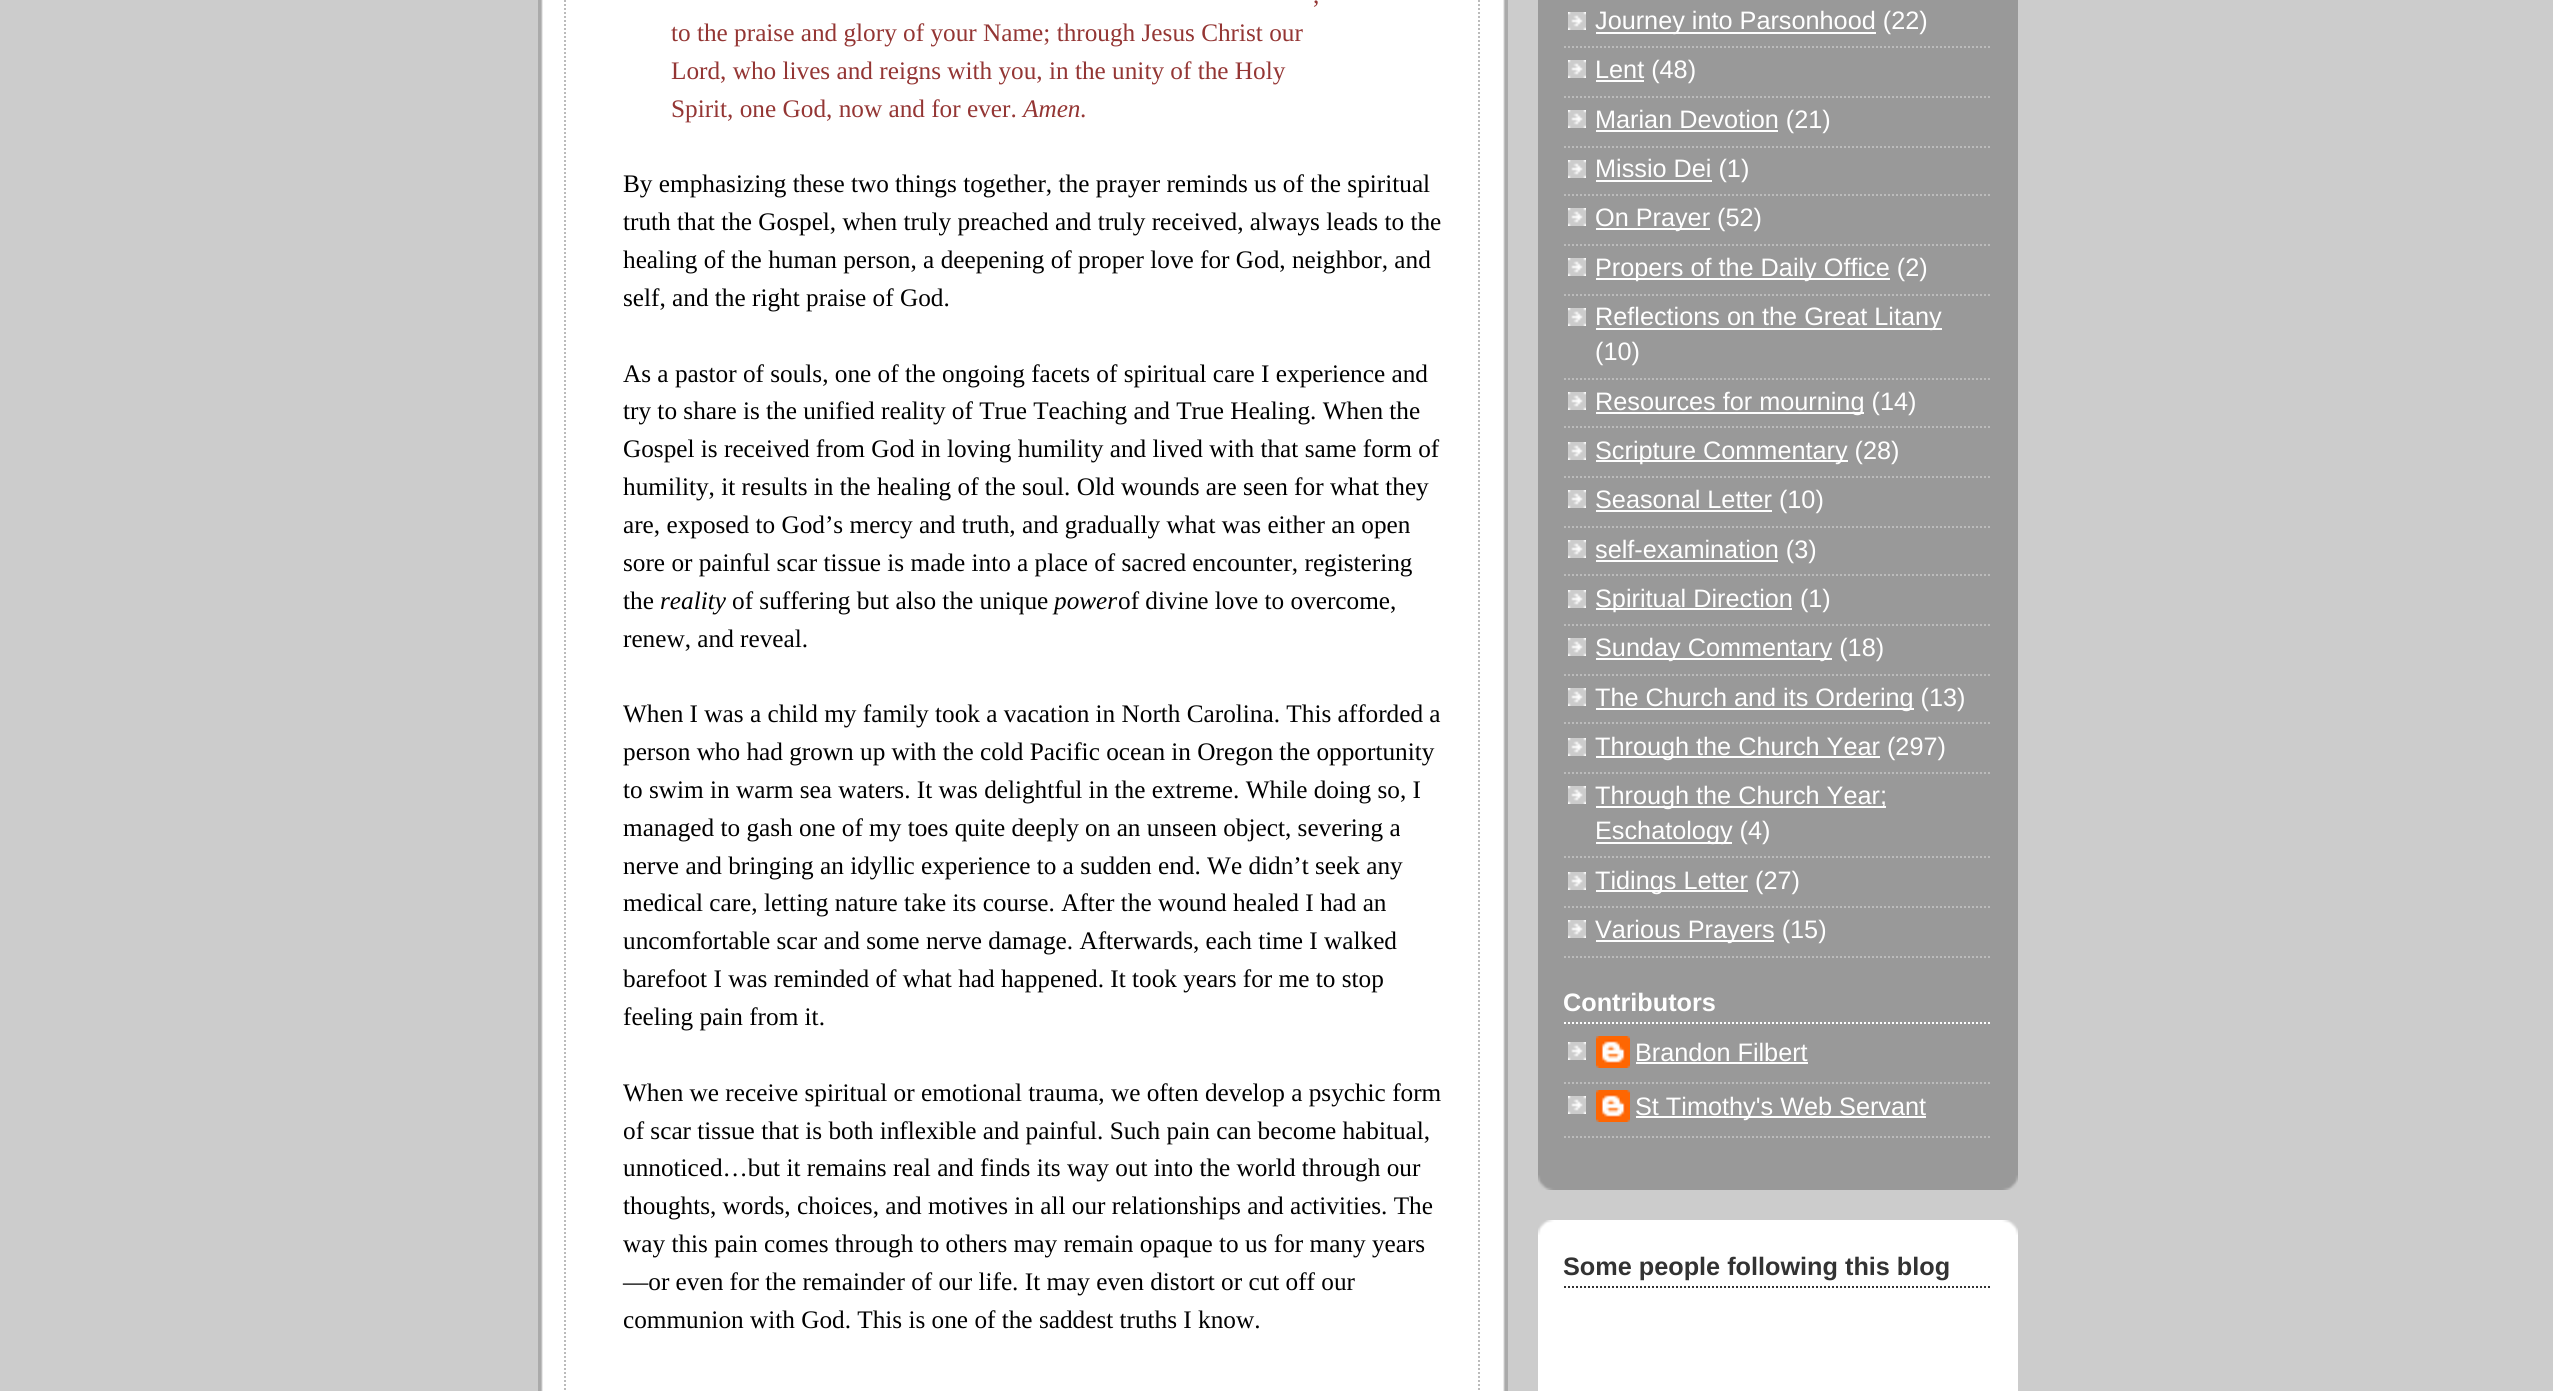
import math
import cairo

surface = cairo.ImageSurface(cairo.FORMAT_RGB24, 2553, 1391)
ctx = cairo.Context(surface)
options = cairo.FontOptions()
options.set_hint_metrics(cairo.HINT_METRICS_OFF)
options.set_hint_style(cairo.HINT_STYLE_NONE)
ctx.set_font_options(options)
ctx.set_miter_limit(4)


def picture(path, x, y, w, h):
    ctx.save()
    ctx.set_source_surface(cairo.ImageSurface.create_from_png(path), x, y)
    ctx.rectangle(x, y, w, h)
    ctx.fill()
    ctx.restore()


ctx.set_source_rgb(0.8, 0.8, 0.8)
ctx.paint()
ctx.set_source_rgb(1, 1, 1)
ctx.rectangle(541, 0, 964, 1391)
ctx.fill()
picture("img1.png", 538, 0, 970, 1391)
ctx.new_path()
ctx.move_to(1479, -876)
ctx.line_to(1479, 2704)
ctx.set_source_rgb(0.733, 0.733, 0.733)
ctx.set_dash([2, 2])
ctx.stroke()
ctx.new_path()
ctx.move_to(565, -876)
ctx.line_to(565, 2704)
ctx.stroke()
ctx.select_font_face("Liberation Serif")
ctx.set_font_size(25.25)
ctx.set_source_rgb(0.58, 0.212, 0.204)
ctx.move_to(1313, 3)
ctx.show_text(",")
ctx.move_to(671, 41)
ctx.show_text("to the praise and glory of your Name; through Jesus Christ our")
ctx.move_to(671, 79)
ctx.show_text("Lord, who lives and reigns with you, in the unity of the Holy")
ctx.move_to(671, 117)
ctx.show_text("Spirit, one God, now and for ever.")
ctx.select_font_face("Liberation Serif", cairo.FONT_SLANT_ITALIC)
ctx.move_to(1023, 117)
ctx.show_text("Amen")
ctx.select_font_face("Liberation Serif")
ctx.move_to(1080, 117)
ctx.show_text(".")
ctx.set_source_rgb(0, 0, 0)
ctx.move_to(623, 192)
ctx.show_text("By emphasizing these two things together, the prayer reminds us of the spiritual")
ctx.move_to(623, 230)
ctx.show_text("truth that the Gospel, when truly preached and truly received, always leads to the")
ctx.move_to(623, 268)
ctx.show_text("healing of the human person, a deepening of proper love for God, neighbor, and")
ctx.move_to(623, 306)
ctx.show_text("self, and the right praise of God.")
ctx.move_to(623, 382)
ctx.show_text("As a pastor of souls, one of the ongoing facets of spiritual care I experience and")
ctx.move_to(623, 419)
ctx.show_text("try to share is the unified reality of True Teaching and True Healing. When the")
ctx.move_to(623, 457)
ctx.show_text("Gospel is received from God in loving humility and lived with that same form of")
ctx.move_to(623, 495)
ctx.show_text("humility, it results in the healing of the soul. Old wounds are seen for what they")
ctx.move_to(623, 533)
ctx.show_text("are, exposed to God’s mercy and truth, and gradually what was either an open")
ctx.move_to(623, 571)
ctx.show_text("sore or painful scar tissue is made into a place of sacred encounter, registering")
ctx.move_to(623, 609)
ctx.show_text("the")
ctx.select_font_face("Liberation Serif", cairo.FONT_SLANT_ITALIC)
ctx.move_to(660, 609)
ctx.show_text("reality")
ctx.select_font_face("Liberation Serif")
ctx.move_to(732, 609)
ctx.show_text("of suffering but also the unique")
ctx.select_font_face("Liberation Serif", cairo.FONT_SLANT_ITALIC)
ctx.move_to(1054, 609)
ctx.show_text("power")
ctx.select_font_face("Liberation Serif")
ctx.move_to(1118, 609)
ctx.show_text("of divine love to overcome,")
ctx.move_to(623, 647)
ctx.show_text("renew, and reveal.")
ctx.move_to(623, 722)
ctx.show_text("When I was a child my family took a vacation in North Carolina. This afforded a")
ctx.move_to(623, 760)
ctx.show_text("person who had grown up with the cold Pacific ocean in Oregon the opportunity")
ctx.move_to(623, 798)
ctx.show_text("to swim in warm sea waters. It was delightful in the extreme. While doing so, I")
ctx.move_to(623, 836)
ctx.show_text("managed to gash one of my toes quite deeply on an unseen object, severing a")
ctx.move_to(623, 874)
ctx.show_text("nerve and bringing an idyllic experience to a sudden end. We didn’t seek any")
ctx.move_to(623, 911)
ctx.show_text("medical care, letting nature take its course. After the wound healed I had an")
ctx.move_to(623, 949)
ctx.show_text("uncomfortable scar and some nerve damage. Afterwards, each time I walked")
ctx.move_to(623, 987)
ctx.show_text("barefoot I was reminded of what had happened. It took years for me to stop")
ctx.move_to(623, 1025)
ctx.show_text("feeling pain from it.")
ctx.move_to(623, 1101)
ctx.show_text("When we receive spiritual or emotional trauma, we often develop a psychic form")
ctx.move_to(623, 1139)
ctx.show_text("of scar tissue that is both inflexible and painful. Such pain can become habitual,")
ctx.move_to(623, 1176)
ctx.show_text("unnoticed…but it remains real and finds its way out into the world through our")
ctx.move_to(623, 1214)
ctx.show_text("thoughts, words, choices, and motives in all our relationships and activities. The")
ctx.move_to(623, 1252)
ctx.show_text("way this pain comes through to others may remain opaque to us for many years")
ctx.move_to(623, 1290)
ctx.show_text("—or even for the remainder of our life. It may even distort or cut off our")
ctx.move_to(623, 1328)
ctx.show_text("communion with God. This is one of the saddest truths I know.")
ctx.set_source_rgb(0.6, 0.6, 0.6)
ctx.rectangle(1538, 0, 480, 1190)
ctx.fill()
picture("img2.png", 1538, 1175, 480, 15)
picture("img3.png", 1568, 12, 18, 18)
ctx.new_path()
ctx.move_to(1564, 47)
ctx.line_to(1992, 47)
ctx.set_source_rgb(0.733, 0.733, 0.733)
ctx.stroke()
ctx.set_source_rgb(1, 1, 1)
ctx.rectangle(1596, 32, 280, 2)
ctx.fill()
ctx.select_font_face("Liberation Sans")
ctx.move_to(1595, 29)
ctx.show_text("Journey into Parsonhood (22)")
picture("img3.png", 1568, 60, 18, 18)
ctx.new_path()
ctx.move_to(1564, 97)
ctx.line_to(1992, 97)
ctx.set_source_rgb(0.733, 0.733, 0.733)
ctx.stroke()
ctx.set_source_rgb(1, 1, 1)
ctx.rectangle(1596, 80, 48, 2)
ctx.fill()
ctx.move_to(1595, 78)
ctx.show_text("Lent (48)")
picture("img3.png", 1568, 110, 18, 18)
ctx.new_path()
ctx.move_to(1564, 147)
ctx.line_to(1992, 147)
ctx.set_source_rgb(0.733, 0.733, 0.733)
ctx.stroke()
ctx.set_source_rgb(1, 1, 1)
ctx.rectangle(1596, 130, 182, 2)
ctx.fill()
ctx.move_to(1595, 128)
ctx.show_text("Marian Devotion (21)")
picture("img3.png", 1568, 160, 18, 18)
ctx.new_path()
ctx.move_to(1564, 195)
ctx.line_to(1992, 195)
ctx.set_source_rgb(0.733, 0.733, 0.733)
ctx.stroke()
ctx.set_source_rgb(1, 1, 1)
ctx.rectangle(1596, 180, 116, 2)
ctx.fill()
ctx.move_to(1595, 177)
ctx.show_text("Missio Dei (1)")
picture("img3.png", 1568, 208, 18, 18)
ctx.new_path()
ctx.move_to(1564, 245)
ctx.line_to(1992, 245)
ctx.set_source_rgb(0.733, 0.733, 0.733)
ctx.stroke()
ctx.set_source_rgb(1, 1, 1)
ctx.rectangle(1596, 228, 114, 2)
ctx.fill()
ctx.move_to(1595, 226)
ctx.show_text("On Prayer (52)")
picture("img3.png", 1568, 258, 18, 18)
ctx.new_path()
ctx.move_to(1564, 295)
ctx.line_to(1992, 295)
ctx.set_source_rgb(0.733, 0.733, 0.733)
ctx.stroke()
ctx.set_source_rgb(1, 1, 1)
ctx.rectangle(1596, 278, 294, 2)
ctx.fill()
ctx.move_to(1595, 276)
ctx.show_text("Propers of the Daily Office (2)")
picture("img3.png", 1568, 308, 18, 18)
ctx.new_path()
ctx.move_to(1564, 379)
ctx.line_to(1992, 379)
ctx.set_source_rgb(0.733, 0.733, 0.733)
ctx.stroke()
ctx.set_source_rgb(1, 1, 1)
ctx.rectangle(1596, 328, 346, 2)
ctx.fill()
ctx.move_to(1595, 325)
ctx.show_text("Reflections on the Great Litany")
ctx.move_to(1595, 360)
ctx.show_text("(10)")
picture("img3.png", 1568, 392, 18, 18)
ctx.new_path()
ctx.move_to(1564, 427)
ctx.line_to(1992, 427)
ctx.set_source_rgb(0.733, 0.733, 0.733)
ctx.stroke()
ctx.set_source_rgb(1, 1, 1)
ctx.rectangle(1596, 412, 268, 2)
ctx.fill()
ctx.move_to(1595, 410)
ctx.show_text("Resources for mourning (14)")
picture("img3.png", 1568, 442, 18, 18)
ctx.new_path()
ctx.move_to(1564, 477)
ctx.line_to(1992, 477)
ctx.set_source_rgb(0.733, 0.733, 0.733)
ctx.stroke()
ctx.set_source_rgb(1, 1, 1)
ctx.rectangle(1596, 460, 252, 2)
ctx.fill()
ctx.move_to(1595, 459)
ctx.show_text("Scripture Commentary (28)")
picture("img3.png", 1568, 490, 18, 18)
ctx.new_path()
ctx.move_to(1564, 527)
ctx.line_to(1992, 527)
ctx.set_source_rgb(0.733, 0.733, 0.733)
ctx.stroke()
ctx.set_source_rgb(1, 1, 1)
ctx.rectangle(1596, 510, 176, 2)
ctx.fill()
ctx.move_to(1595, 508)
ctx.show_text("Seasonal Letter (10)")
picture("img3.png", 1568, 540, 18, 18)
ctx.new_path()
ctx.move_to(1564, 575)
ctx.line_to(1992, 575)
ctx.set_source_rgb(0.733, 0.733, 0.733)
ctx.stroke()
ctx.set_source_rgb(1, 1, 1)
ctx.rectangle(1596, 560, 182, 2)
ctx.fill()
ctx.move_to(1595, 558)
ctx.show_text("self-examination (3)")
picture("img3.png", 1568, 590, 18, 18)
ctx.new_path()
ctx.move_to(1564, 625)
ctx.line_to(1992, 625)
ctx.set_source_rgb(0.733, 0.733, 0.733)
ctx.stroke()
ctx.set_source_rgb(1, 1, 1)
ctx.rectangle(1596, 608, 196, 2)
ctx.fill()
ctx.move_to(1595, 607)
ctx.show_text("Spiritual Direction (1)")
picture("img3.png", 1568, 638, 18, 18)
ctx.new_path()
ctx.move_to(1564, 675)
ctx.line_to(1992, 675)
ctx.set_source_rgb(0.733, 0.733, 0.733)
ctx.stroke()
ctx.set_source_rgb(1, 1, 1)
ctx.rectangle(1596, 658, 236, 2)
ctx.fill()
ctx.move_to(1595, 656)
ctx.show_text("Sunday Commentary (18)")
picture("img3.png", 1568, 688, 18, 18)
ctx.new_path()
ctx.move_to(1564, 723)
ctx.line_to(1992, 723)
ctx.set_source_rgb(0.733, 0.733, 0.733)
ctx.stroke()
ctx.set_source_rgb(1, 1, 1)
ctx.rectangle(1596, 708, 318, 2)
ctx.fill()
ctx.move_to(1595, 706)
ctx.show_text("The Church and its Ordering (13)")
picture("img3.png", 1568, 738, 18, 18)
ctx.new_path()
ctx.move_to(1564, 773)
ctx.line_to(1992, 773)
ctx.set_source_rgb(0.733, 0.733, 0.733)
ctx.stroke()
ctx.set_source_rgb(1, 1, 1)
ctx.rectangle(1596, 756, 284, 2)
ctx.fill()
ctx.move_to(1595, 755)
ctx.show_text("Through the Church Year (297)")
picture("img3.png", 1568, 786, 18, 18)
ctx.new_path()
ctx.move_to(1564, 857)
ctx.line_to(1992, 857)
ctx.set_source_rgb(0.733, 0.733, 0.733)
ctx.stroke()
ctx.set_source_rgb(1, 1, 1)
ctx.rectangle(1596, 806, 290, 2)
ctx.fill()
ctx.move_to(1595, 804)
ctx.show_text("Through the Church Year;")
ctx.rectangle(1596, 842, 136, 2)
ctx.fill()
ctx.move_to(1595, 839)
ctx.show_text("Eschatology (4)")
picture("img3.png", 1568, 872, 18, 18)
ctx.new_path()
ctx.move_to(1564, 907)
ctx.line_to(1992, 907)
ctx.set_source_rgb(0.733, 0.733, 0.733)
ctx.stroke()
ctx.set_source_rgb(1, 1, 1)
ctx.rectangle(1596, 890, 152, 2)
ctx.fill()
ctx.move_to(1595, 889)
ctx.show_text("Tidings Letter (27)")
picture("img3.png", 1568, 920, 18, 18)
ctx.new_path()
ctx.move_to(1564, 957)
ctx.line_to(1992, 957)
ctx.set_source_rgb(0.733, 0.733, 0.733)
ctx.stroke()
ctx.set_source_rgb(1, 1, 1)
ctx.rectangle(1596, 940, 178, 2)
ctx.fill()
ctx.move_to(1595, 938)
ctx.show_text("Various Prayers (15)")
ctx.new_path()
ctx.move_to(1564, 1023)
ctx.line_to(1992, 1023)
ctx.stroke()
ctx.select_font_face("Liberation Sans", cairo.FONT_SLANT_NORMAL, cairo.FONT_WEIGHT_BOLD)
ctx.move_to(1563, 1011)
ctx.show_text("Contributors")
picture("img3.png", 1568, 1042, 18, 18)
ctx.new_path()
ctx.move_to(1564, 1083)
ctx.line_to(1992, 1083)
ctx.set_source_rgb(0.733, 0.733, 0.733)
ctx.stroke()
picture("img4.png", 1596, 1036, 34, 32)
ctx.select_font_face("Liberation Sans")
ctx.set_source_rgb(1, 1, 1)
ctx.move_to(1635, 1061)
ctx.show_text("Brandon Filbert")
ctx.rectangle(1636, 1062, 172, 2)
ctx.fill()
picture("img3.png", 1568, 1096, 18, 18)
ctx.new_path()
ctx.move_to(1564, 1137)
ctx.line_to(1992, 1137)
ctx.set_source_rgb(0.733, 0.733, 0.733)
ctx.stroke()
picture("img4.png", 1596, 1090, 34, 32)
ctx.set_source_rgb(1, 1, 1)
ctx.rectangle(1636, 1116, 290, 2)
ctx.fill()
ctx.move_to(1635, 1115)
ctx.show_text("St Timothy's Web Servant")
ctx.rectangle(1538, 1220, 480, 171)
ctx.fill()
picture("img5.png", 1538, 1220, 480, 15)
ctx.new_path()
ctx.move_to(1564, 1287)
ctx.line_to(1992, 1287)
ctx.set_source_rgb(0.2, 0.2, 0.2)
ctx.stroke()
ctx.select_font_face("Liberation Sans", cairo.FONT_SLANT_NORMAL, cairo.FONT_WEIGHT_BOLD)
ctx.move_to(1563, 1275)
ctx.show_text("Some people following this blog")
surface.write_to_png("page.png")
